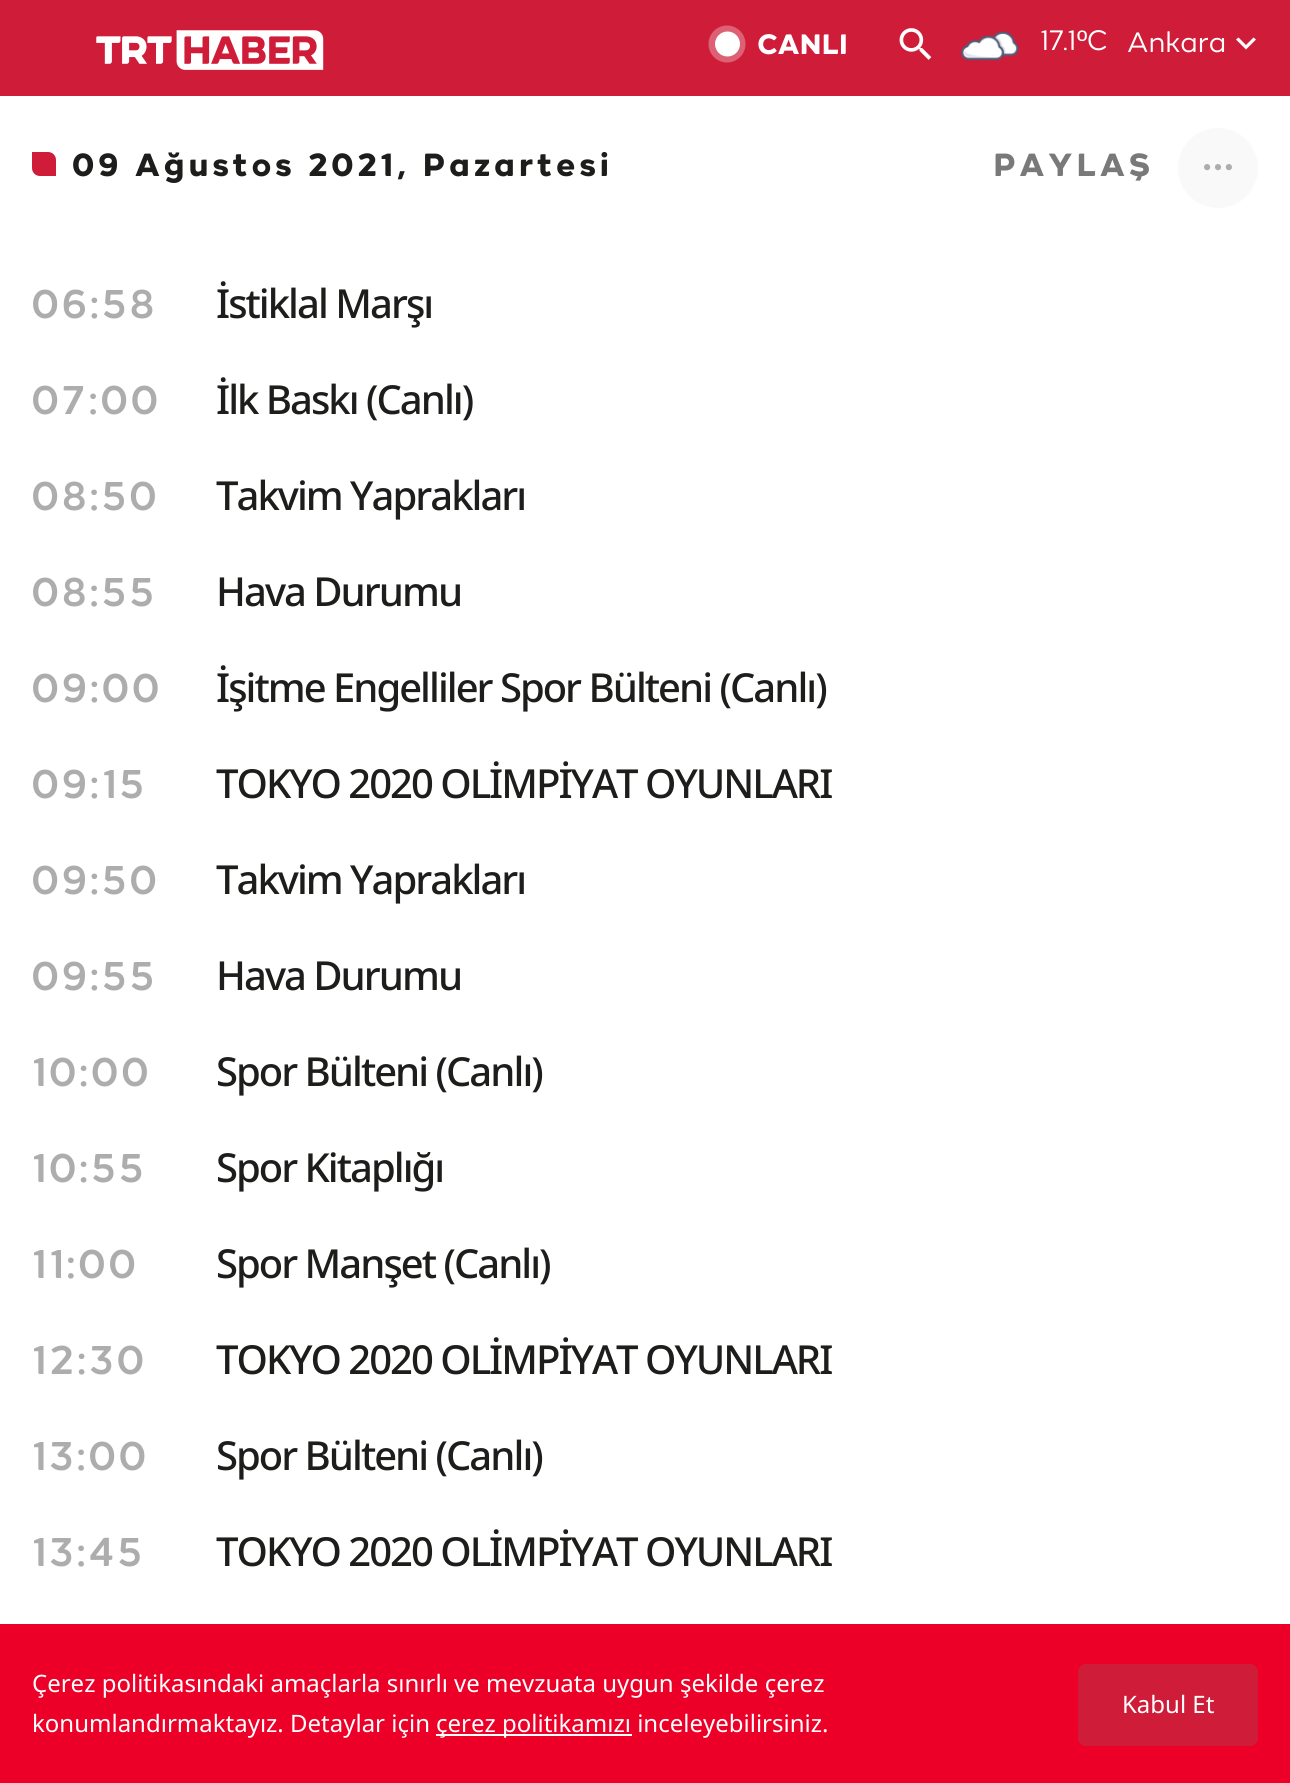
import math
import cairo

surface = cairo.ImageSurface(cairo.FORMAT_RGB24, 1290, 1783)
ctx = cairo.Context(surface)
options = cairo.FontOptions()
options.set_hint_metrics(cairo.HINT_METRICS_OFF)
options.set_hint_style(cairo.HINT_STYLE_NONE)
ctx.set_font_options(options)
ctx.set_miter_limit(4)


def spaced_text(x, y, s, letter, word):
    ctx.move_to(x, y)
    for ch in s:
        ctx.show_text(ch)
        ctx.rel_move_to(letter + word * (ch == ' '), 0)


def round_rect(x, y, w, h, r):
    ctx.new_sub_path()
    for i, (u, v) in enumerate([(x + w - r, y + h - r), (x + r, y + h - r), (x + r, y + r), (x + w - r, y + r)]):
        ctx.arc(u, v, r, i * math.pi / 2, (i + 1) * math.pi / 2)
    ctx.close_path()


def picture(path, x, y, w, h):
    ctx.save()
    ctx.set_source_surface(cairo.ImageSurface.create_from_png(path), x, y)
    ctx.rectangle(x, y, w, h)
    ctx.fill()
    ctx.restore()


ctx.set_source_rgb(1, 1, 1)
ctx.paint()
ctx.set_source_rgb(0.812, 0.114, 0.224)
ctx.rectangle(0, 0, 1290, 96)
ctx.fill()
picture("img1.png", 96, 30, 228, 40)
ctx.set_source_rgb(0.867, 0.38, 0.455)
ctx.arc(727, 44, 18.5, 0, 2 * math.pi)
ctx.fill()
ctx.set_source_rgb(1, 1, 1)
ctx.arc(727.5, 44, 12.5, 0, 2 * math.pi)
ctx.fill()
ctx.select_font_face("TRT", cairo.FONT_SLANT_NORMAL, cairo.FONT_WEIGHT_BOLD)
ctx.set_font_size(28)
ctx.move_to(757, 54)
ctx.show_text("CANLI")
picture("img2.png", 899, 28, 33, 32)
picture("img3.png", 961, 31, 58, 30)
ctx.select_font_face("TRT")
ctx.move_to(1040, 50)
ctx.show_text("17.1")
ctx.select_font_face("Liberation Sans")
ctx.move_to(1077, 50)
ctx.show_text("º")
ctx.select_font_face("TRT")
ctx.move_to(1087, 50)
ctx.show_text("C")
ctx.move_to(1127, 52)
ctx.show_text("Ankara")
ctx.new_path()
ctx.move_to(1256, 39.5)
ctx.line_to(1253.5, 37.5)
ctx.line_to(1246, 45)
ctx.line_to(1238.5, 37.5)
ctx.line_to(1236, 39.5)
ctx.line_to(1246, 49.5)
ctx.close_path()
ctx.fill()
ctx.set_source_rgb(0.812, 0.114, 0.224)
ctx.new_path()
ctx.move_to(32, 152)
ctx.line_to(48, 152)
ctx.curve_to(52.5, 152, 56, 155.5, 56, 160)
ctx.line_to(56, 176)
ctx.line_to(40, 176)
ctx.curve_to(35.5, 176, 32, 172.5, 32, 168)
ctx.close_path()
ctx.fill()
ctx.select_font_face("TRT", cairo.FONT_SLANT_NORMAL, cairo.FONT_WEIGHT_BOLD)
ctx.set_font_size(32)
ctx.set_source_rgb(0.114, 0.114, 0.106)
spaced_text(72, 176, "09 Ağustos 2021, Pazartesi", 4, 0)
ctx.set_source_rgb(0.475, 0.475, 0.475)
spaced_text(993, 176, "PAYLAŞ", 4, 0)
ctx.set_source_rgb(0.973, 0.973, 0.973)
ctx.new_path()
ctx.arc(1218, 168, 40, 0, 2 * math.pi)
ctx.fill()
picture("img4.png", 1204, 164, 28, 7)
ctx.select_font_face("TRT Medium")
ctx.set_font_size(40)
ctx.set_source_rgb(0.678, 0.678, 0.678)
spaced_text(32, 318, "06:58", 4, 0)
ctx.select_font_face("Noto Sans Medium")
ctx.set_source_rgb(0.114, 0.114, 0.106)
spaced_text(216, 318, "İstiklal Marşı", -2, 0)
ctx.select_font_face("TRT Medium")
ctx.set_source_rgb(0.678, 0.678, 0.678)
spaced_text(32, 414, "07:00", 4, 0)
ctx.select_font_face("Noto Sans Medium")
ctx.set_source_rgb(0.114, 0.114, 0.106)
spaced_text(216, 414, "İlk Baskı (Canlı)", -2, 0)
ctx.select_font_face("TRT Medium")
ctx.set_source_rgb(0.678, 0.678, 0.678)
spaced_text(32, 510, "08:50", 4, 0)
ctx.select_font_face("Noto Sans Medium")
ctx.set_source_rgb(0.114, 0.114, 0.106)
spaced_text(216, 510, "Takvim Yaprakları", -2, 0)
ctx.select_font_face("TRT Medium")
ctx.set_source_rgb(0.678, 0.678, 0.678)
spaced_text(32, 606, "08:55", 4, 0)
ctx.select_font_face("Noto Sans Medium")
ctx.set_source_rgb(0.114, 0.114, 0.106)
spaced_text(216, 606, "Hava Durumu", -2, 0)
ctx.select_font_face("TRT Medium")
ctx.set_source_rgb(0.678, 0.678, 0.678)
spaced_text(32, 702, "09:00", 4, 0)
ctx.select_font_face("Noto Sans Medium")
ctx.set_source_rgb(0.114, 0.114, 0.106)
spaced_text(216, 702, "İşitme Engelliler Spor Bülteni (Canlı)", -2, 0)
ctx.select_font_face("TRT Medium")
ctx.set_source_rgb(0.678, 0.678, 0.678)
spaced_text(32, 798, "09:15", 4, 0)
ctx.select_font_face("Noto Sans Medium")
ctx.set_source_rgb(0.114, 0.114, 0.106)
spaced_text(216, 798, "TOKYO 2020 OLİMPİYAT OYUNLARI", -2, 0)
ctx.select_font_face("TRT Medium")
ctx.set_source_rgb(0.678, 0.678, 0.678)
spaced_text(32, 894, "09:50", 4, 0)
ctx.select_font_face("Noto Sans Medium")
ctx.set_source_rgb(0.114, 0.114, 0.106)
spaced_text(216, 894, "Takvim Yaprakları", -2, 0)
ctx.select_font_face("TRT Medium")
ctx.set_source_rgb(0.678, 0.678, 0.678)
spaced_text(32, 990, "09:55", 4, 0)
ctx.select_font_face("Noto Sans Medium")
ctx.set_source_rgb(0.114, 0.114, 0.106)
spaced_text(216, 990, "Hava Durumu", -2, 0)
ctx.select_font_face("TRT Medium")
ctx.set_source_rgb(0.678, 0.678, 0.678)
spaced_text(32, 1086, "10:00", 4, 0)
ctx.select_font_face("Noto Sans Medium")
ctx.set_source_rgb(0.114, 0.114, 0.106)
spaced_text(216, 1086, "Spor Bülteni (Canlı)", -2, 0)
ctx.select_font_face("TRT Medium")
ctx.set_source_rgb(0.678, 0.678, 0.678)
spaced_text(32, 1182, "10:55", 4, 0)
ctx.select_font_face("Noto Sans Medium")
ctx.set_source_rgb(0.114, 0.114, 0.106)
spaced_text(216, 1182, "Spor Kitaplığı", -2, 0)
ctx.select_font_face("TRT Medium")
ctx.set_source_rgb(0.678, 0.678, 0.678)
spaced_text(32, 1278, "11:00", 4, 0)
ctx.select_font_face("Noto Sans Medium")
ctx.set_source_rgb(0.114, 0.114, 0.106)
spaced_text(216, 1278, "Spor Manşet (Canlı)", -2, 0)
ctx.select_font_face("TRT Medium")
ctx.set_source_rgb(0.678, 0.678, 0.678)
spaced_text(32, 1374, "12:30", 4, 0)
ctx.select_font_face("Noto Sans Medium")
ctx.set_source_rgb(0.114, 0.114, 0.106)
spaced_text(216, 1374, "TOKYO 2020 OLİMPİYAT OYUNLARI", -2, 0)
ctx.select_font_face("TRT Medium")
ctx.set_source_rgb(0.678, 0.678, 0.678)
spaced_text(32, 1470, "13:00", 4, 0)
ctx.select_font_face("Noto Sans Medium")
ctx.set_source_rgb(0.114, 0.114, 0.106)
spaced_text(216, 1470, "Spor Bülteni (Canlı)", -2, 0)
ctx.select_font_face("TRT Medium")
ctx.set_source_rgb(0.678, 0.678, 0.678)
spaced_text(32, 1566, "13:45", 4, 0)
ctx.select_font_face("Noto Sans Medium")
ctx.set_source_rgb(0.114, 0.114, 0.106)
spaced_text(216, 1566, "TOKYO 2020 OLİMPİYAT OYUNLARI", -2, 0)
ctx.set_source_rgb(0.922, 0, 0.157)
ctx.rectangle(0, 1624, 1290, 159)
ctx.fill()
ctx.select_font_face("Noto Sans")
ctx.set_font_size(24)
ctx.set_source_rgb(1, 1, 1)
ctx.move_to(32, 1692)
ctx.show_text("Çerez politikasındaki amaçlarla sınırlı ve mevzuata uygun şekilde çerez")
ctx.move_to(32, 1732)
ctx.show_text("konumlandırmaktayız. Detaylar için")
ctx.rectangle(436, 1734, 196, 2)
ctx.fill()
ctx.move_to(436, 1732)
ctx.show_text("çerez politikamızı inceleyebilirsiniz.")
ctx.set_source_rgb(0.812, 0.114, 0.224)
round_rect(1078, 1664, 180, 82, 8)
ctx.fill()
ctx.set_source_rgb(1, 1, 1)
ctx.move_to(1122, 1713)
ctx.show_text("Kabul Et")
surface.write_to_png("page.png")
